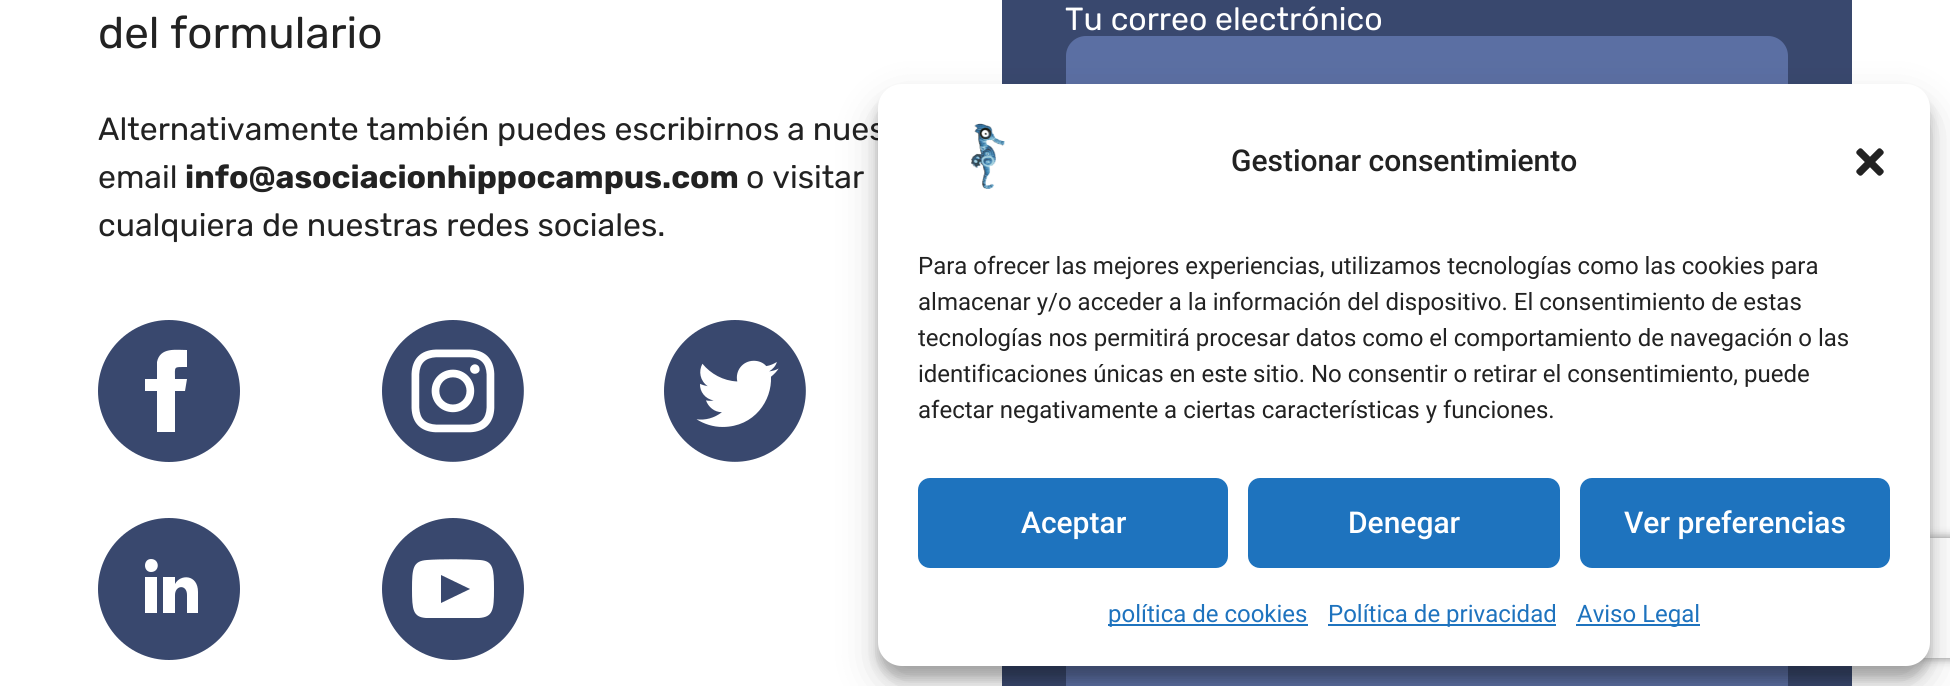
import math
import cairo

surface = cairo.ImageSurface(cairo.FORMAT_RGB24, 1950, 686)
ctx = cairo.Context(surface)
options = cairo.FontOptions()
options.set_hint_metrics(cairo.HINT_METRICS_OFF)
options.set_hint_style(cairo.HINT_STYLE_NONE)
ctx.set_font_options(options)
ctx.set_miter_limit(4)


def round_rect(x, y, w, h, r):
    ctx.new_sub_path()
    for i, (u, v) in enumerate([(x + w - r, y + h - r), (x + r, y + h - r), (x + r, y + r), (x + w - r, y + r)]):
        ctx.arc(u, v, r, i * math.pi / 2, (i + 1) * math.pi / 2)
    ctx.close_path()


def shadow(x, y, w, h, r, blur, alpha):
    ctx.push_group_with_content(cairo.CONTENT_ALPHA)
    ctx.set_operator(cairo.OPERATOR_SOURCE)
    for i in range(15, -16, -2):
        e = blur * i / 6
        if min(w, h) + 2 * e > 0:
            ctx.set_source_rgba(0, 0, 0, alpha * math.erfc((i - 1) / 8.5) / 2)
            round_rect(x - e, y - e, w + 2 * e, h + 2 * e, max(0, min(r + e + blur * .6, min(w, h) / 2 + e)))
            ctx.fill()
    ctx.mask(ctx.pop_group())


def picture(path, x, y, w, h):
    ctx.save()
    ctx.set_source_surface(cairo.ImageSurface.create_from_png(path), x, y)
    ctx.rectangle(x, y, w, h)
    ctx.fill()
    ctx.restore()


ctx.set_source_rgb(1, 1, 1)
ctx.paint()
ctx.select_font_face("Rubik")
ctx.set_font_size(44)
ctx.set_source_rgb(0.133, 0.133, 0.133)
ctx.move_to(98, 48)
ctx.show_text("del formulario")
ctx.set_font_size(32)
ctx.move_to(98, 140)
ctx.show_text("Alternativamente también puedes escribirnos a nues")
ctx.move_to(98, 188)
ctx.show_text("email")
ctx.select_font_face("Rubik", cairo.FONT_SLANT_NORMAL, cairo.FONT_WEIGHT_BOLD)
ctx.move_to(185, 188)
ctx.show_text("info@asociacionhippocampus.com")
ctx.select_font_face("Rubik")
ctx.move_to(746, 188)
ctx.show_text("o visitar")
ctx.move_to(98, 236)
ctx.show_text("cualquiera de nuestras redes sociales.")
ctx.set_source_rgb(0.224, 0.282, 0.431)
ctx.new_path()
ctx.move_to(169, 320)
ctx.curve_to(130, 320, 98, 352, 98, 391)
ctx.curve_to(98, 430, 130, 462, 169, 462)
ctx.curve_to(208, 462, 240, 430, 240, 391)
ctx.curve_to(240, 352, 208, 320, 169, 320)
ctx.close_path()
ctx.move_to(187, 367)
ctx.curve_to(173, 367, 175, 366, 175, 379)
ctx.line_to(187, 379)
ctx.line_to(185, 391)
ctx.line_to(175, 391)
ctx.line_to(175, 432)
ctx.line_to(157, 432)
ctx.line_to(157, 391)
ctx.line_to(145, 391)
ctx.line_to(145, 379)
ctx.line_to(157, 379)
ctx.line_to(157, 362)
ctx.curve_to(160, 347, 176, 350, 187, 350)
ctx.close_path()
ctx.fill()
picture("img1.png", 382, 320, 142, 142)
picture("img2.png", 664, 320, 142, 142)
ctx.new_path()
ctx.move_to(169, 518)
ctx.curve_to(130, 518, 98, 550, 98, 589)
ctx.curve_to(98, 628, 130, 660, 169, 660)
ctx.curve_to(208, 660, 240, 628, 240, 589)
ctx.curve_to(240, 550, 208, 518, 169, 518)
ctx.close_path()
ctx.move_to(157, 613)
ctx.line_to(145, 613)
ctx.line_to(145, 577)
ctx.line_to(157, 577)
ctx.close_path()
ctx.move_to(151, 572)
ctx.curve_to(143, 572, 143, 559, 151, 559)
ctx.curve_to(160, 559, 160, 572, 151, 572)
ctx.close_path()
ctx.move_to(198, 613)
ctx.line_to(187, 613)
ctx.line_to(187, 595)
ctx.curve_to(187, 584, 175, 585, 175, 595)
ctx.line_to(175, 613)
ctx.line_to(163, 613)
ctx.line_to(163, 577)
ctx.line_to(175, 577)
ctx.line_to(175, 584)
ctx.curve_to(180, 574, 198, 574, 198, 592)
ctx.close_path()
ctx.fill()
ctx.new_path()
ctx.move_to(453, 518)
ctx.curve_to(414, 518, 382, 550, 382, 589)
ctx.curve_to(382, 628, 414, 660, 453, 660)
ctx.curve_to(492, 660, 524, 628, 524, 589)
ctx.curve_to(524, 550, 492, 518, 453, 518)
ctx.close_path()
ctx.move_to(479, 618)
ctx.curve_to(467, 618, 439, 618, 426, 618)
ctx.curve_to(413, 617, 412, 610, 412, 589)
ctx.curve_to(412, 568, 413, 561, 427, 560)
ctx.curve_to(439, 559, 467, 559, 480, 560)
ctx.curve_to(493, 561, 494, 568, 494, 589)
ctx.curve_to(494, 610, 493, 617, 479, 618)
ctx.close_path()
ctx.move_to(441, 575)
ctx.line_to(470, 589)
ctx.line_to(441, 603)
ctx.close_path()
ctx.fill()
ctx.rectangle(1002, 0, 850, 686)
ctx.fill()
ctx.set_source_rgb(1, 1, 1)
ctx.move_to(1065, 30)
ctx.show_text("Tu correo electrónico")
ctx.set_source_rgb(0.357, 0.435, 0.639)
round_rect(1066, 36, 722, 80, 20)
ctx.fill()
ctx.rectangle(1066, 666, 722, 20)
ctx.fill()
ctx.set_source_rgb(0, 0, 0)
shadow(878, 96, 1052, 582, 24, 6, 0.23)
shadow(878, 104, 1052, 582, 24, 20, 0.19)
ctx.save()
ctx.set_fill_rule(cairo.FILL_RULE_EVEN_ODD)
ctx.new_path()
ctx.move_to(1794, 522)
ctx.line_to(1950, 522)
ctx.line_to(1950, 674)
ctx.line_to(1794, 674)
ctx.close_path()
ctx.move_to(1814, 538)
ctx.line_to(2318, 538)
ctx.curve_to(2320, 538, 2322, 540, 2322, 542)
ctx.line_to(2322, 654)
ctx.curve_to(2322, 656, 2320, 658, 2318, 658)
ctx.line_to(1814, 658)
ctx.curve_to(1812, 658, 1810, 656, 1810, 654)
ctx.line_to(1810, 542)
ctx.curve_to(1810, 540, 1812, 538, 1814, 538)
ctx.close_path()
ctx.clip()
ctx.set_source_rgb(0.502, 0.502, 0.502)
shadow(1810, 538, 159, 120, 4, 5, 1)
ctx.restore()
ctx.set_source_rgb(1, 1, 1)
round_rect(878, 84, 1052, 582, 24)
ctx.fill()
picture("img3.png", 971, 123, 34, 66)
ctx.select_font_face("Roboto Medium")
ctx.set_font_size(30)
ctx.set_source_rgb(0.133, 0.133, 0.133)
ctx.move_to(1231, 171)
ctx.show_text("Gestionar consentimiento")
picture("img4.png", 1856, 148, 28, 28)
ctx.select_font_face("Roboto")
ctx.set_font_size(24)
ctx.move_to(918, 274)
ctx.show_text("Para ofrecer las mejores experiencias, utilizamos tecnologías como las cookies para")
ctx.move_to(918, 310)
ctx.show_text("almacenar y/o acceder a la información del dispositivo. El consentimiento de estas")
ctx.move_to(918, 346)
ctx.show_text("tecnologías nos permitirá procesar datos como el comportamiento de navegación o las")
ctx.move_to(918, 382)
ctx.show_text("identificaciones únicas en este sitio. No consentir o retirar el consentimiento, puede")
ctx.move_to(918, 418)
ctx.show_text("afectar negativamente a ciertas características y funciones.")
ctx.set_source_rgb(0.118, 0.451, 0.745)
round_rect(919, 479, 308, 88, 11)
ctx.fill_preserve()
ctx.stroke()
ctx.select_font_face("Roboto Medium")
ctx.set_font_size(30)
ctx.set_source_rgb(1, 1, 1)
ctx.move_to(1021, 533)
ctx.show_text("Aceptar")
ctx.set_source_rgb(0.118, 0.451, 0.745)
round_rect(1249, 479, 310, 88, 11)
ctx.fill_preserve()
ctx.stroke()
ctx.set_source_rgb(1, 1, 1)
ctx.move_to(1348, 533)
ctx.show_text("Denegar")
ctx.set_source_rgb(0.118, 0.451, 0.745)
round_rect(1581, 479, 308, 88, 11)
ctx.fill_preserve()
ctx.stroke()
ctx.set_source_rgb(1, 1, 1)
ctx.move_to(1624, 533)
ctx.show_text("Ver preferencias")
ctx.set_source_rgb(0.118, 0.451, 0.745)
ctx.rectangle(1108, 624, 200, 2)
ctx.fill()
ctx.select_font_face("Roboto")
ctx.set_font_size(24)
ctx.move_to(1108, 622)
ctx.show_text("política de cookies")
ctx.rectangle(1328, 624, 228, 2)
ctx.fill()
ctx.move_to(1328, 622)
ctx.show_text("Política de privacidad")
ctx.rectangle(1576, 624, 124, 2)
ctx.fill()
ctx.move_to(1577, 622)
ctx.show_text("Aviso Legal")
surface.write_to_png("page.png")
